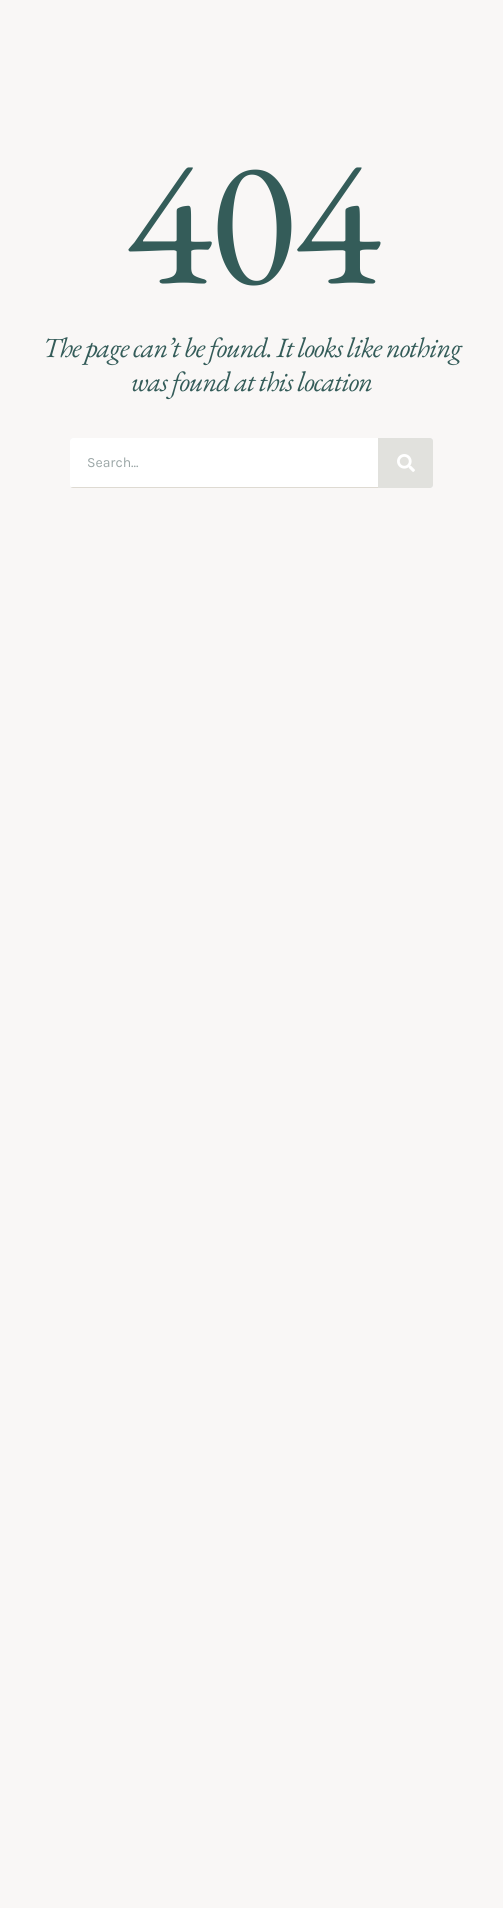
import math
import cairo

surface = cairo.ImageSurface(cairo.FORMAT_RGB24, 503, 1908)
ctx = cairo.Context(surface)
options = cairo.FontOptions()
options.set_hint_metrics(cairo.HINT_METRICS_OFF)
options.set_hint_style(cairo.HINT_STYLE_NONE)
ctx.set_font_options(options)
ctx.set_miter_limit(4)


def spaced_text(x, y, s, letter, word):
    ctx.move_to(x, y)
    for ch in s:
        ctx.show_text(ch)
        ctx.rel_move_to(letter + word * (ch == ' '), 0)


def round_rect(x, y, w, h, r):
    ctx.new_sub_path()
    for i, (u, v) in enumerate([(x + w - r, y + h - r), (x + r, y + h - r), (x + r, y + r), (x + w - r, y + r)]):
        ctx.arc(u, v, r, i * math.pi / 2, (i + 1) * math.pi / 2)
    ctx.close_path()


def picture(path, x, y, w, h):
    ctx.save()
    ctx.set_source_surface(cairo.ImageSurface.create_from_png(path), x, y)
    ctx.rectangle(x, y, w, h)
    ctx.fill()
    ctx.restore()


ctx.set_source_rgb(0.976, 0.965, 0.961)
ctx.paint()
ctx.select_font_face("EB Garamond")
ctx.set_font_size(180)
ctx.set_source_rgb(0.204, 0.361, 0.349)
spaced_text(125, 283, "404", -2, 0)
ctx.select_font_face("EB Garamond", cairo.FONT_SLANT_ITALIC)
ctx.set_font_size(28)
spaced_text(43, 357, "The page can’t be found. It looks like nothing", -1, 0)
spaced_text(131, 391, "was found at this location", -1, 0)
ctx.set_source_rgb(0.945, 0.949, 0.953)
round_rect(70, 438, 363, 50, 3)
ctx.fill()
ctx.save()
round_rect(70, 438, 363, 50, 3)
ctx.clip()
ctx.set_source_rgb(1, 1, 1)
ctx.new_path()
ctx.move_to(73, 438)
ctx.line_to(378, 438)
ctx.line_to(378, 487)
ctx.line_to(70, 487)
ctx.line_to(70, 441)
ctx.curve_to(70, 439.5, 71.5, 438, 73, 438)
ctx.close_path()
ctx.fill()
ctx.set_source_rgb(0.871, 0.855, 0.824)
ctx.rectangle(70, 487, 308, 1)
ctx.fill()
ctx.restore()
ctx.select_font_face("Karla")
ctx.set_font_size(14)
ctx.set_source_rgb(0.608, 0.651, 0.651)
ctx.move_to(87, 467)
ctx.show_text("Search...")
ctx.set_source_rgb(0.882, 0.882, 0.867)
ctx.new_path()
ctx.move_to(378, 438)
ctx.line_to(430, 438)
ctx.curve_to(431.5, 438, 433, 439.5, 433, 441)
ctx.line_to(433, 485)
ctx.curve_to(433, 486.5, 431.5, 488, 430, 488)
ctx.line_to(378, 488)
ctx.close_path()
ctx.fill()
picture("img1.png", 397, 454, 18, 18)
surface.write_to_png("page.png")
